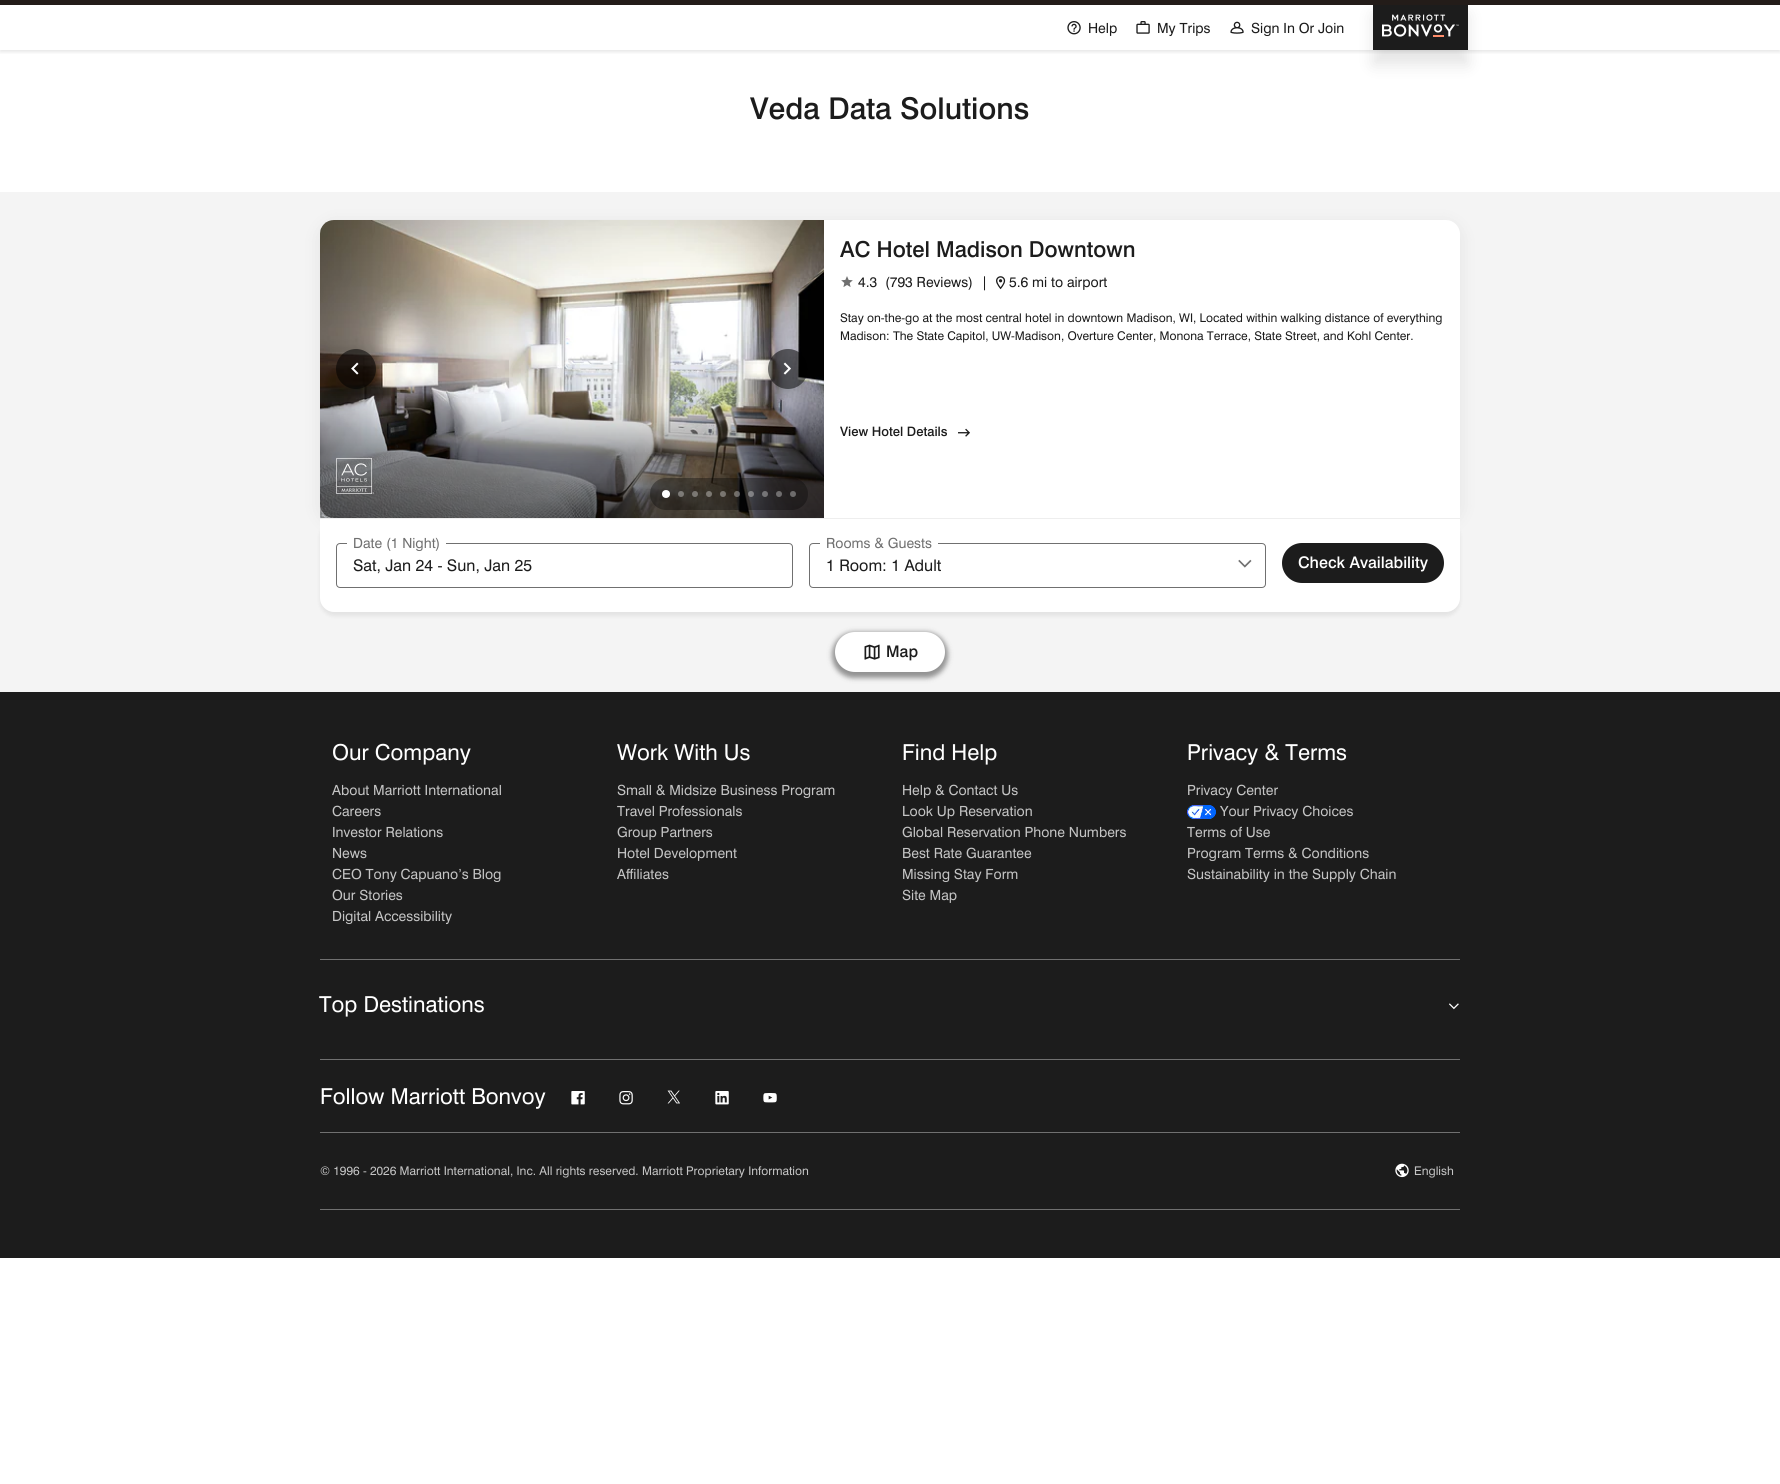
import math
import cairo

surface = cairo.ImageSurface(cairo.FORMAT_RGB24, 1780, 1484)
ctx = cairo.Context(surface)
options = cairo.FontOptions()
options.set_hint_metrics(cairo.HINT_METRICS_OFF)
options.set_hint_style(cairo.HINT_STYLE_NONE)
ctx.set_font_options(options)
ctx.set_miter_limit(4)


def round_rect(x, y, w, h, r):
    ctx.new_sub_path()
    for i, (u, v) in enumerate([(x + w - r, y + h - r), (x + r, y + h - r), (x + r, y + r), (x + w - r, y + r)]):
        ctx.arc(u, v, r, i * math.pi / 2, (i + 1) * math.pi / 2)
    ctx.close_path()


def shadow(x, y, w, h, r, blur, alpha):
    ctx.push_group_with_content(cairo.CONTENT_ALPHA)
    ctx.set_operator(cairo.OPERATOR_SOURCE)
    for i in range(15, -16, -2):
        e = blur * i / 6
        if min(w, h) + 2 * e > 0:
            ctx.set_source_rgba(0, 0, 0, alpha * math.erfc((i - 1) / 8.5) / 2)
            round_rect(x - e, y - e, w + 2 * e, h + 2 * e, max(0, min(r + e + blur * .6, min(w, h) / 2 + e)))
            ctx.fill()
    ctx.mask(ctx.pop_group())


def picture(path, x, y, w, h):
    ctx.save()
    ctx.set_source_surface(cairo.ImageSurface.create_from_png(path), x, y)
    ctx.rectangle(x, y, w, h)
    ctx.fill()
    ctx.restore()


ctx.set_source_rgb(1, 1, 1)
ctx.paint()
ctx.save()
ctx.rectangle(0, 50, 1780, 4)
ctx.clip()
ctx.set_source_rgb(0, 0, 0)
shadow(0, 2, 1780, 50, 0, 2, 0.1)
ctx.restore()
ctx.set_source_rgb(0, 0, 0)
shadow(1373, 15, 95, 50, 0, 7.5, 0.1)
ctx.set_source_rgb(0.137, 0.11, 0.098)
ctx.rectangle(0, 0, 1780, 5)
ctx.fill()
picture("img1.png", 1067, 21, 14, 14)
ctx.select_font_face("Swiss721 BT")
ctx.set_font_size(14)
ctx.set_source_rgb(0.11, 0.11, 0.11)
ctx.move_to(1088, 33)
ctx.show_text("Help")
picture("img2.png", 1136, 21, 14, 13)
ctx.move_to(1157, 33)
ctx.show_text("My Trips")
picture("img3.png", 1230, 21, 14, 13)
ctx.move_to(1251, 33)
ctx.show_text("Sign In Or Join")
ctx.rectangle(1373, 5, 95, 45)
ctx.fill()
picture("img4.png", 1382, 14, 77, 23)
ctx.set_source_rgb(1, 0.553, 0.42)
ctx.rectangle(1433, 35, 11, 2)
ctx.fill()
ctx.select_font_face("Swiss721 BT Medium")
ctx.set_font_size(30)
ctx.set_source_rgb(0.11, 0.11, 0.11)
ctx.move_to(750, 119)
ctx.show_text("Veda Data Solutions")
ctx.set_source_rgb(0.957, 0.957, 0.957)
ctx.rectangle(0, 192, 1780, 500)
ctx.fill()
ctx.set_source_rgb(0, 0, 0)
shadow(320, 224, 1140, 298, 14, 10, 0.07)
ctx.set_source_rgb(1, 1, 1)
ctx.new_path()
ctx.move_to(334, 220)
ctx.line_to(1446, 220)
ctx.curve_to(1453.5, 220, 1460, 226.5, 1460, 234)
ctx.line_to(1460, 518)
ctx.line_to(320, 518)
ctx.line_to(320, 234)
ctx.curve_to(320, 226.5, 326.5, 220, 334, 220)
ctx.close_path()
ctx.fill()
ctx.set_source_rgb(0, 0, 0)
shadow(320, 522, 1140, 94, 14, 2, 0.07)
picture("img5.png", 320, 220, 504, 298)
ctx.set_source_rgba(0, 0, 0, 0.54)
ctx.arc(356, 369, 20, 0, 2 * math.pi)
ctx.fill()
picture("img6.png", 351, 362, 8, 13)
ctx.save()
ctx.set_fill_rule(cairo.FILL_RULE_EVEN_ODD)
ctx.new_path()
ctx.move_to(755, 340)
ctx.line_to(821, 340)
ctx.line_to(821, 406)
ctx.line_to(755, 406)
ctx.close_path()
ctx.move_to(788, 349)
ctx.curve_to(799, 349, 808, 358, 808, 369)
ctx.curve_to(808, 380, 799, 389, 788, 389)
ctx.curve_to(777, 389, 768, 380, 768, 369)
ctx.curve_to(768, 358, 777, 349, 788, 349)
ctx.close_path()
ctx.clip()
ctx.set_source_rgb(0, 0, 0)
shadow(768, 353, 40, 40, 20, 4, 0.1)
ctx.restore()
ctx.arc(788, 369, 20, 0, 2 * math.pi)
ctx.fill()
picture("img7.png", 783, 362, 8, 13)
ctx.set_source_rgba(0, 0, 0, 0.33)
round_rect(650, 478, 158, 32, 16)
ctx.fill()
ctx.set_source_rgb(1, 1, 1)
ctx.arc(666, 494, 4, 0, 2 * math.pi)
ctx.fill()
ctx.set_source_rgba(1, 1, 1, 0.34)
ctx.arc(681, 494, 3, 0, 2 * math.pi)
ctx.fill()
ctx.arc(695, 494, 3, 0, 2 * math.pi)
ctx.fill()
ctx.arc(709, 494, 3, 0, 2 * math.pi)
ctx.fill()
ctx.arc(723, 494, 3, 0, 2 * math.pi)
ctx.fill()
ctx.arc(737, 494, 3, 0, 2 * math.pi)
ctx.fill()
ctx.arc(751, 494, 3, 0, 2 * math.pi)
ctx.fill()
ctx.arc(765, 494, 3, 0, 2 * math.pi)
ctx.fill()
ctx.arc(779, 494, 3, 0, 2 * math.pi)
ctx.fill()
ctx.set_source_rgb(0.427, 0.42, 0.42)
ctx.arc(793, 494, 3, 0, 2 * math.pi)
ctx.fill()
picture("img8.png", 336, 458, 38, 36)
ctx.set_font_size(22)
ctx.set_source_rgb(0.11, 0.11, 0.11)
ctx.move_to(840, 257)
ctx.show_text("AC Hotel Madison Downtown")
picture("img9.png", 841, 276, 12, 11)
ctx.select_font_face("Swiss721 BT")
ctx.set_font_size(14)
ctx.move_to(858, 287)
ctx.show_text("4.3")
ctx.move_to(885, 287)
ctx.show_text("(793 Reviews)")
ctx.move_to(981, 287)
ctx.show_text("|")
picture("img10.png", 996, 276, 10, 14)
ctx.move_to(1009, 287)
ctx.show_text("5.6 mi to airport")
ctx.set_font_size(12)
ctx.move_to(840, 322)
ctx.show_text("Stay on-the-go at the most central hotel in downtown Madison, WI, Located within walking distance of everything")
ctx.move_to(840, 340)
ctx.show_text("Madison: The State Capitol, UW-Madison, Overture Center, Monona Terrace, State Street, and Kohl Center.")
ctx.select_font_face("Swiss721 BT Medium")
ctx.set_font_size(13)
ctx.move_to(840, 436)
ctx.show_text("View Hotel Details")
picture("img11.png", 958, 428, 12, 9)
ctx.set_source_rgb(1, 1, 1)
ctx.new_path()
ctx.move_to(320, 518)
ctx.line_to(1460, 518)
ctx.line_to(1460, 598)
ctx.curve_to(1460, 605.5, 1453.5, 612, 1446, 612)
ctx.line_to(334, 612)
ctx.curve_to(326.5, 612, 320, 605.5, 320, 598)
ctx.close_path()
ctx.fill()
ctx.set_source_rgb(0.933, 0.933, 0.933)
ctx.rectangle(320, 518, 1140, 1)
ctx.fill()
round_rect(336.5, 543.5, 456, 44, 3.5)
ctx.set_source_rgb(0.439, 0.439, 0.439)
ctx.set_line_width(1)
ctx.stroke()
ctx.set_source_rgb(1, 1, 1)
ctx.rectangle(347, 543, 99, 1)
ctx.fill()
ctx.select_font_face("Swiss721 BT")
ctx.set_font_size(14)
ctx.set_source_rgb(0.439, 0.439, 0.439)
ctx.move_to(353, 548)
ctx.show_text("Date (1 Night)")
ctx.set_font_size(16)
ctx.set_source_rgb(0.11, 0.11, 0.11)
ctx.move_to(353, 571)
ctx.show_text("Sat, Jan 24 - Sun, Jan 25")
round_rect(809.5, 543.5, 456, 44, 3.5)
ctx.set_source_rgb(0.439, 0.439, 0.439)
ctx.stroke()
ctx.set_source_rgb(1, 1, 1)
ctx.rectangle(820, 543, 118, 1)
ctx.fill()
ctx.set_font_size(14)
ctx.set_source_rgb(0.439, 0.439, 0.439)
ctx.move_to(826, 548)
ctx.show_text("Rooms & Guests")
ctx.set_font_size(16)
ctx.set_source_rgb(0.11, 0.11, 0.11)
ctx.move_to(826, 571)
ctx.show_text("1 Room: 1 Adult")
picture("img12.png", 1238, 559, 14, 9)
round_rect(1282, 543, 162, 40, 20)
ctx.fill()
ctx.select_font_face("Swiss721 BT Medium")
ctx.set_source_rgb(1, 1, 1)
ctx.move_to(1298, 568)
ctx.show_text("Check Availability")
ctx.set_source_rgb(0, 0, 0)
shadow(832, 632, 116, 46, 23, 2.5, 0.4)
ctx.set_source_rgb(1, 1, 1)
round_rect(835, 632, 110, 40, 20)
ctx.fill()
picture("img13.png", 864, 644, 16, 16)
ctx.set_source_rgb(0.11, 0.11, 0.11)
ctx.move_to(886, 657)
ctx.show_text("Map")
ctx.rectangle(0, 692, 1780, 566)
ctx.fill()
ctx.set_source_rgb(0.439, 0.439, 0.439)
ctx.rectangle(320, 959, 1140, 1)
ctx.fill()
ctx.select_font_face("Swiss721 BT")
ctx.set_font_size(22)
ctx.set_source_rgb(1, 1, 1)
ctx.move_to(332, 760)
ctx.show_text("Our Company")
ctx.set_font_size(14)
ctx.set_source_rgb(0.769, 0.769, 0.769)
ctx.move_to(332, 795)
ctx.show_text("About Marriott International")
ctx.move_to(332, 816)
ctx.show_text("Careers")
ctx.move_to(332, 837)
ctx.show_text("Investor Relations")
ctx.move_to(332, 858)
ctx.show_text("News")
ctx.move_to(332, 879)
ctx.show_text("CEO Tony Capuano’s Blog")
ctx.move_to(332, 900)
ctx.show_text("Our Stories")
ctx.move_to(332, 921)
ctx.show_text("Digital Accessibility")
ctx.set_font_size(22)
ctx.set_source_rgb(1, 1, 1)
ctx.move_to(617, 760)
ctx.show_text("Work With Us")
ctx.set_font_size(14)
ctx.set_source_rgb(0.769, 0.769, 0.769)
ctx.move_to(617, 795)
ctx.show_text("Small & Midsize Business Program")
ctx.move_to(617, 816)
ctx.show_text("Travel Professionals")
ctx.move_to(617, 837)
ctx.show_text("Group Partners")
ctx.move_to(617, 858)
ctx.show_text("Hotel Development")
ctx.move_to(617, 879)
ctx.show_text("Affiliates")
ctx.set_font_size(22)
ctx.set_source_rgb(1, 1, 1)
ctx.move_to(902, 760)
ctx.show_text("Find Help")
ctx.set_font_size(14)
ctx.set_source_rgb(0.769, 0.769, 0.769)
ctx.move_to(902, 795)
ctx.show_text("Help & Contact Us")
ctx.move_to(902, 816)
ctx.show_text("Look Up Reservation")
ctx.move_to(902, 837)
ctx.show_text("Global Reservation Phone Numbers")
ctx.move_to(902, 858)
ctx.show_text("Best Rate Guarantee")
ctx.move_to(902, 879)
ctx.show_text("Missing Stay Form")
ctx.move_to(902, 900)
ctx.show_text("Site Map")
ctx.set_font_size(22)
ctx.set_source_rgb(1, 1, 1)
ctx.move_to(1187, 760)
ctx.show_text("Privacy & Terms")
ctx.set_font_size(14)
ctx.set_source_rgb(0.769, 0.769, 0.769)
ctx.move_to(1187, 795)
ctx.show_text("Privacy Center")
picture("img14.png", 1187, 805, 29, 14)
ctx.move_to(1220, 816)
ctx.show_text("Your Privacy Choices")
ctx.move_to(1187, 837)
ctx.show_text("Terms of Use")
ctx.move_to(1187, 858)
ctx.show_text("Program Terms & Conditions")
ctx.move_to(1187, 879)
ctx.show_text("Sustainability in the Supply Chain")
ctx.set_font_size(22)
ctx.set_source_rgb(1, 1, 1)
ctx.move_to(319, 1012)
ctx.show_text("Top Destinations")
picture("img15.png", 1449, 1003, 10, 7)
ctx.set_source_rgb(0.439, 0.439, 0.439)
ctx.rectangle(320, 1059, 1140, 1)
ctx.fill()
ctx.set_source_rgb(1, 1, 1)
ctx.move_to(320, 1104)
ctx.show_text("Follow Marriott Bonvoy")
picture("img16.png", 571, 1091, 14, 14)
picture("img17.png", 619, 1091, 14, 14)
picture("img18.png", 667, 1090, 13, 14)
picture("img19.png", 715, 1091, 14, 14)
picture("img20.png", 763, 1093, 14, 10)
ctx.set_source_rgb(0.439, 0.439, 0.439)
ctx.rectangle(320, 1132, 1140, 1)
ctx.fill()
ctx.rectangle(320, 1209, 1140, 1)
ctx.fill()
ctx.set_font_size(12)
ctx.set_source_rgb(0.769, 0.769, 0.769)
ctx.move_to(320, 1175)
ctx.show_text("© 1996 - 2026 Marriott International, Inc. All rights reserved. Marriott Proprietary Information")
picture("img21.png", 1395, 1163, 14, 15)
ctx.move_to(1414, 1175)
ctx.show_text("English")
surface.write_to_png("page.png")
